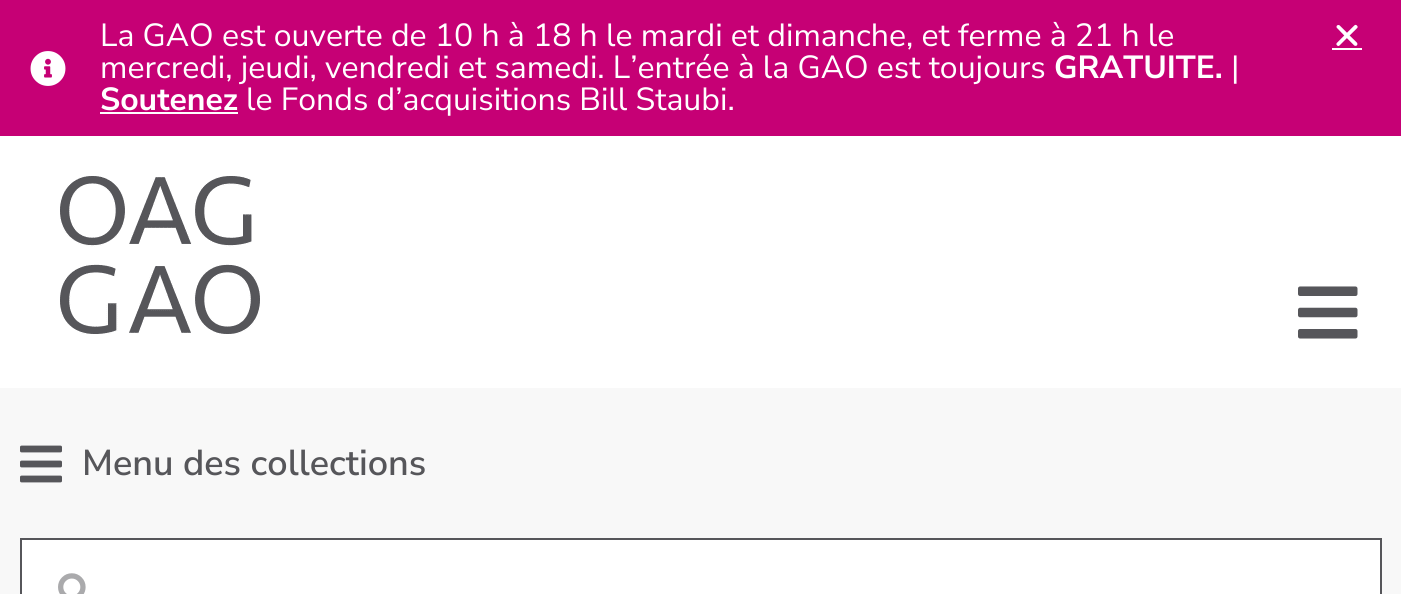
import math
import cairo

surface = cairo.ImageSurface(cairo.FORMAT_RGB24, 1401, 594)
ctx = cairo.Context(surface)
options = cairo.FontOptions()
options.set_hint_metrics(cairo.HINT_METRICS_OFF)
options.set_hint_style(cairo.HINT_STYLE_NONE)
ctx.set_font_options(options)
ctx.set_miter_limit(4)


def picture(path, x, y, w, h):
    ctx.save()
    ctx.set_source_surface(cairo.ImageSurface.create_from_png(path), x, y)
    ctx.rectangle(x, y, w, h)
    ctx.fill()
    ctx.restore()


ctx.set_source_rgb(1, 1, 1)
ctx.paint()
ctx.set_source_rgb(0.776, 0, 0.459)
ctx.rectangle(0, 0, 1401, 136)
ctx.fill()
picture("img1.png", 30, 51, 36, 35)
ctx.select_font_face("Nunito Sans")
ctx.set_font_size(32)
ctx.set_source_rgb(1, 1, 1)
ctx.move_to(100, 46)
ctx.show_text("La GAO est ouverte de 10 h à 18 h le mardi et dimanche, et ferme à 21 h le")
ctx.move_to(100, 78)
ctx.show_text("mercredi, jeudi, vendredi et samedi. L’entrée à la GAO est toujours")
ctx.select_font_face("Nunito Sans", cairo.FONT_SLANT_NORMAL, cairo.FONT_WEIGHT_BOLD)
ctx.move_to(1054, 78)
ctx.show_text("GRATUITE.")
ctx.select_font_face("Nunito Sans")
ctx.move_to(1231, 78)
ctx.show_text("|")
ctx.select_font_face("Nunito Sans", cairo.FONT_SLANT_NORMAL, cairo.FONT_WEIGHT_BOLD)
ctx.move_to(100, 110)
ctx.show_text("Soutenez")
ctx.rectangle(100, 112, 138, 2)
ctx.fill()
ctx.select_font_face("Nunito Sans")
ctx.move_to(246, 110)
ctx.show_text("le Fonds d’acquisitions Bill Staubi.")
picture("img2.png", 1336, 24, 22, 22)
ctx.rectangle(1332, 48, 30, 2)
ctx.fill()
picture("img3.png", 60, 176, 200, 158)
picture("img4.png", 1298, 286, 60, 53)
ctx.set_source_rgb(0.969, 0.969, 0.969)
ctx.rectangle(0, 388, 1401, 206)
ctx.fill()
picture("img5.png", 20, 445, 42, 38)
ctx.select_font_face("Nunito Sans SemiBold")
ctx.set_font_size(36)
ctx.set_source_rgb(0.337, 0.337, 0.353)
ctx.move_to(82, 475)
ctx.show_text("Menu des collections")
ctx.set_source_rgb(1, 1, 1)
ctx.rectangle(21, 539, 1360, 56)
ctx.fill_preserve()
ctx.set_source_rgb(0.337, 0.337, 0.353)
ctx.stroke()
picture("img6.png", 58, 573, 28, 21)
surface.write_to_png("page.png")
